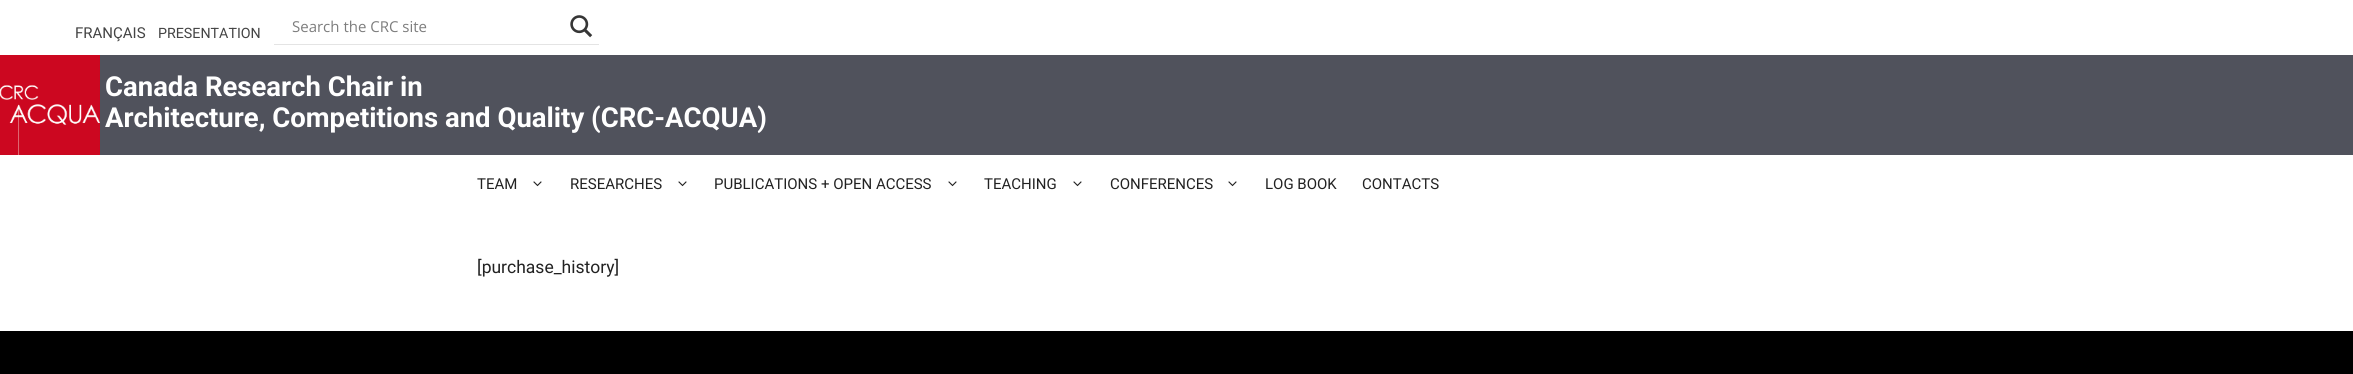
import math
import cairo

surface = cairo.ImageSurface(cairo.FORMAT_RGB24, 2353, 374)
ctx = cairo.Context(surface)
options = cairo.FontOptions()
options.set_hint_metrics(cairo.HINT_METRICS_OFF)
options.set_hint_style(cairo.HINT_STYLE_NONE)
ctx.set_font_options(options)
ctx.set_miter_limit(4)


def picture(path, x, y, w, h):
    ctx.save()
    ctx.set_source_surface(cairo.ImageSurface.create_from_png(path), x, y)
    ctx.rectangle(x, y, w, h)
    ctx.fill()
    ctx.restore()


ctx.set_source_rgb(1, 1, 1)
ctx.paint()
ctx.select_font_face("Roboto")
ctx.set_font_size(15)
ctx.set_source_rgb(0.267, 0.267, 0.267)
ctx.move_to(75, 38)
ctx.show_text("FRANÇAIS")
ctx.set_font_size(14.25)
ctx.move_to(158, 38)
ctx.show_text("PRESENTATION")
ctx.set_source_rgb(0.894, 0.894, 0.894)
ctx.new_path()
ctx.move_to(274, 44)
ctx.line_to(274, 45)
ctx.line_to(599, 45)
ctx.line_to(599, 10)
ctx.line_to(599, 44)
ctx.close_path()
ctx.fill()
ctx.select_font_face("Open Sans")
ctx.set_font_size(15)
ctx.set_source_rgb(0.49, 0.49, 0.49)
ctx.move_to(292, 32)
ctx.show_text("Search the CRC site")
picture("img1.png", 570, 15, 23, 23)
ctx.set_source_rgb(0.314, 0.322, 0.361)
ctx.rectangle(0, 55, 2353, 100)
ctx.fill()
picture("img2.png", 0, 55, 100, 100)
ctx.select_font_face("Roboto", cairo.FONT_SLANT_NORMAL, cairo.FONT_WEIGHT_BOLD)
ctx.set_font_size(27.5)
ctx.set_source_rgb(1, 1, 1)
ctx.move_to(105, 96)
ctx.show_text("Canada Research Chair in")
ctx.move_to(105, 127)
ctx.show_text("Architecture, Competitions and Quality (CRC-ACQUA)")
ctx.select_font_face("Roboto")
ctx.set_font_size(15)
ctx.set_source_rgb(0.133, 0.133, 0.133)
ctx.move_to(477, 189)
ctx.show_text("TEAM")
picture("img3.png", 533, 181, 9, 6)
ctx.move_to(570, 189)
ctx.show_text("RESEARCHES")
picture("img3.png", 678, 181, 9, 6)
ctx.move_to(714, 189)
ctx.show_text("PUBLICATIONS + OPEN ACCESS")
picture("img3.png", 948, 181, 9, 6)
ctx.move_to(984, 189)
ctx.show_text("TEACHING")
picture("img3.png", 1073, 181, 9, 6)
ctx.move_to(1110, 189)
ctx.show_text("CONFERENCES")
picture("img3.png", 1228, 181, 9, 6)
ctx.move_to(1265, 189)
ctx.show_text("LOG BOOK")
ctx.move_to(1362, 189)
ctx.show_text("CONTACTS")
ctx.set_font_size(17.5)
ctx.move_to(477, 273)
ctx.show_text("[purchase_history]")
ctx.set_source_rgb(0, 0, 0)
ctx.rectangle(0, 331, 2353, 43)
ctx.fill()
surface.write_to_png("page.png")
